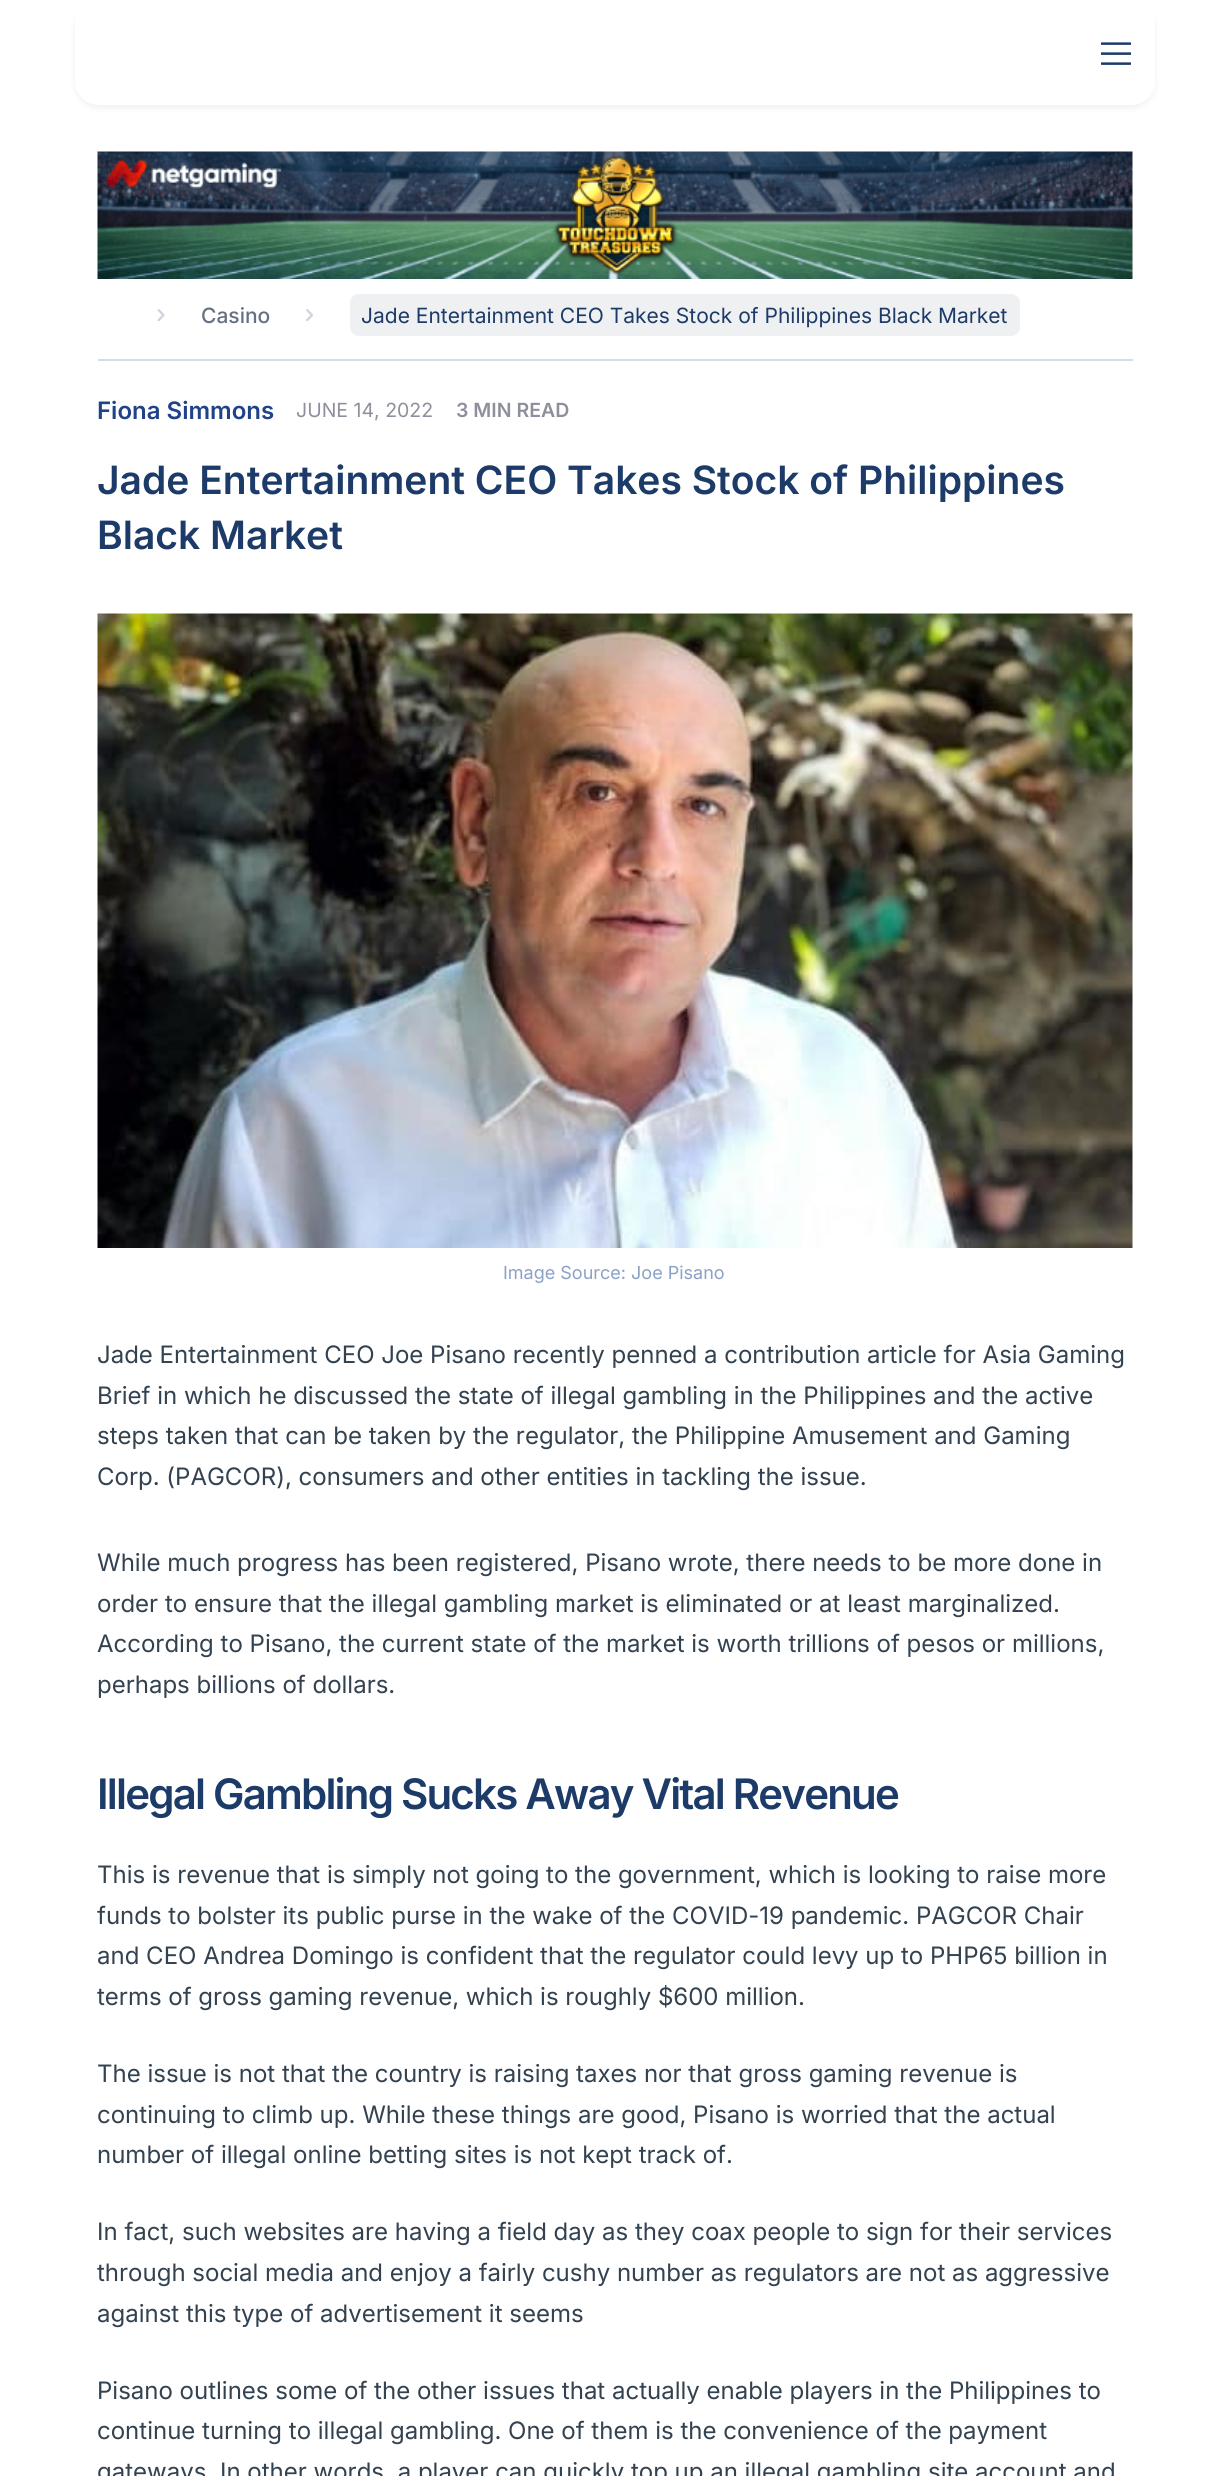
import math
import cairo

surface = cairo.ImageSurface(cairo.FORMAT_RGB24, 1228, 2476)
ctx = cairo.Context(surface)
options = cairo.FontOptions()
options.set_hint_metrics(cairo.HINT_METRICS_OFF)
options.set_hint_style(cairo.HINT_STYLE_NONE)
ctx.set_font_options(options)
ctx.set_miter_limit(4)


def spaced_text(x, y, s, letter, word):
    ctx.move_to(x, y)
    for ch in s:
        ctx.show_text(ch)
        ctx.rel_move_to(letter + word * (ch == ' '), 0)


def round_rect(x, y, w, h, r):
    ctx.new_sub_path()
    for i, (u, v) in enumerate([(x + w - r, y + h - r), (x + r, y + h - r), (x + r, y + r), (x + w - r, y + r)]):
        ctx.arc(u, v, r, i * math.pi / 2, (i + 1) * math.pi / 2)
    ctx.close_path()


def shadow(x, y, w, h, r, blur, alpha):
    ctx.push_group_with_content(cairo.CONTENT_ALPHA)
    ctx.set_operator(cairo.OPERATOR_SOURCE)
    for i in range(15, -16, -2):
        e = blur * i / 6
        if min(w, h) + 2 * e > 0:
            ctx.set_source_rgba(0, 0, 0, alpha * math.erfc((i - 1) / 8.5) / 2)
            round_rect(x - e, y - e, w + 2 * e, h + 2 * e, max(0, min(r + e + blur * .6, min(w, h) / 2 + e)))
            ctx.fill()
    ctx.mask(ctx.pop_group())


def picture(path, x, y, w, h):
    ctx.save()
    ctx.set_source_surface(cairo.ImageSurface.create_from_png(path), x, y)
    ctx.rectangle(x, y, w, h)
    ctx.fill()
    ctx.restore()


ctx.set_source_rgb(1, 1, 1)
ctx.paint()
ctx.set_source_rgb(0.937, 0.941, 0.949)
shadow(75, 3, 1080, 105, 24, 3, 1)
ctx.set_source_rgb(1, 1, 1)
ctx.new_path()
ctx.move_to(75, 0)
ctx.line_to(1155, 0)
ctx.line_to(1155, 81)
ctx.curve_to(1155, 94.5, 1144.5, 105, 1131, 105)
ctx.line_to(99, 105)
ctx.curve_to(85.5, 105, 75, 94.5, 75, 81)
ctx.close_path()
ctx.fill()
picture("img1.png", 1101, 42, 30, 23)
picture("img2.png", 97, 151, 1036, 128)
ctx.set_source_rgb(0.816, 0.871, 0.918)
ctx.rectangle(98, 359, 1035, 2)
ctx.fill()
picture("img3.png", 157, 309, 8, 13)
ctx.select_font_face("Inter Medium")
ctx.set_font_size(21)
ctx.set_source_rgb(0.4, 0.439, 0.522)
ctx.move_to(201, 323)
ctx.show_text("Casino")
picture("img4.png", 306, 309, 7, 13)
ctx.set_source_rgb(0.937, 0.941, 0.949)
round_rect(350, 294, 670, 42, 9)
ctx.fill()
ctx.select_font_face("Inter")
ctx.set_source_rgb(0.114, 0.231, 0.412)
ctx.move_to(361, 323)
ctx.show_text("Jade Entertainment CEO Takes Stock of Philippines Black Market")
ctx.select_font_face("Inter SemiBold")
ctx.set_font_size(24)
ctx.set_source_rgb(0.125, 0.259, 0.537)
ctx.move_to(97, 419)
ctx.show_text("Fiona Simmons")
ctx.select_font_face("Inter")
ctx.set_font_size(19.5)
ctx.set_source_rgb(0.557, 0.561, 0.616)
ctx.move_to(296, 417)
ctx.show_text("JUNE 14, 2022")
ctx.select_font_face("Inter SemiBold")
ctx.move_to(456, 417)
ctx.show_text("3 MIN READ")
ctx.set_font_size(39)
ctx.set_source_rgb(0.114, 0.231, 0.412)
ctx.move_to(97, 494)
ctx.show_text("Jade Entertainment CEO Takes Stock of Philippines")
ctx.move_to(97, 549)
ctx.show_text("Black Market")
picture("img5.png", 97, 613, 1036, 635)
ctx.select_font_face("Inter")
ctx.set_font_size(18)
ctx.set_source_rgb(0.545, 0.631, 0.78)
ctx.move_to(503, 1279)
ctx.show_text("Image Source: Joe Pisano")
ctx.set_font_size(24)
ctx.set_source_rgb(0.2, 0.259, 0.314)
ctx.move_to(97, 1363)
ctx.show_text("Jade Entertainment CEO Joe Pisano recently penned a contribution article for Asia Gaming")
ctx.move_to(97, 1404)
ctx.show_text("Brief in which he discussed the state of illegal gambling in the Philippines and the active")
ctx.move_to(97, 1444)
ctx.show_text("steps taken that can be taken by the regulator, the Philippine Amusement and Gaming")
ctx.move_to(97, 1485)
ctx.show_text("Corp. (PAGCOR), consumers and other entities in tackling the issue.")
ctx.move_to(97, 1571)
ctx.show_text("While much progress has been registered, Pisano wrote, there needs to be more done in")
ctx.move_to(97, 1612)
ctx.show_text("order to ensure that the illegal gambling market is eliminated or at least marginalized.")
ctx.move_to(97, 1652)
ctx.show_text("According to Pisano, the current state of the market is worth trillions of pesos or millions,")
ctx.move_to(97, 1693)
ctx.show_text("perhaps billions of dollars.")
ctx.select_font_face("Inter SemiBold")
ctx.set_font_size(42)
ctx.set_source_rgb(0.114, 0.231, 0.412)
spaced_text(97, 1809, "Illegal Gambling Sucks Away Vital Revenue", -1.8, 0)
ctx.select_font_face("Inter")
ctx.set_font_size(24)
ctx.set_source_rgb(0.2, 0.259, 0.314)
ctx.move_to(97, 1883)
ctx.show_text("This is revenue that is simply not going to the government, which is looking to raise more")
ctx.move_to(97, 1924)
ctx.show_text("funds to bolster its public purse in the wake of the COVID-19 pandemic. PAGCOR Chair")
ctx.move_to(97, 1964)
ctx.show_text("and CEO Andrea Domingo is confident that the regulator could levy up to PHP65 billion in")
ctx.move_to(97, 2005)
ctx.show_text("terms of gross gaming revenue, which is roughly $600 million.")
ctx.move_to(97, 2082)
ctx.show_text("The issue is not that the country is raising taxes nor that gross gaming revenue is")
ctx.move_to(97, 2123)
ctx.show_text("continuing to climb up. While these things are good, Pisano is worried that the actual")
ctx.move_to(97, 2163)
ctx.show_text("number of illegal online betting sites is not kept track of.")
ctx.move_to(97, 2240)
ctx.show_text("In fact, such websites are having a field day as they coax people to sign for their services")
ctx.move_to(97, 2281)
ctx.show_text("through social media and enjoy a fairly cushy number as regulators are not as aggressive")
ctx.move_to(97, 2322)
ctx.show_text("against this type of advertisement it seems")
ctx.move_to(97, 2399)
ctx.show_text("Pisano outlines some of the other issues that actually enable players in the Philippines to")
ctx.move_to(97, 2439)
ctx.show_text("continue turning to illegal gambling. One of them is the convenience of the payment")
ctx.move_to(97, 2480)
ctx.show_text("gateways. In other words, a player can quickly top up an illegal gambling site account and")
surface.write_to_png("page.png")
